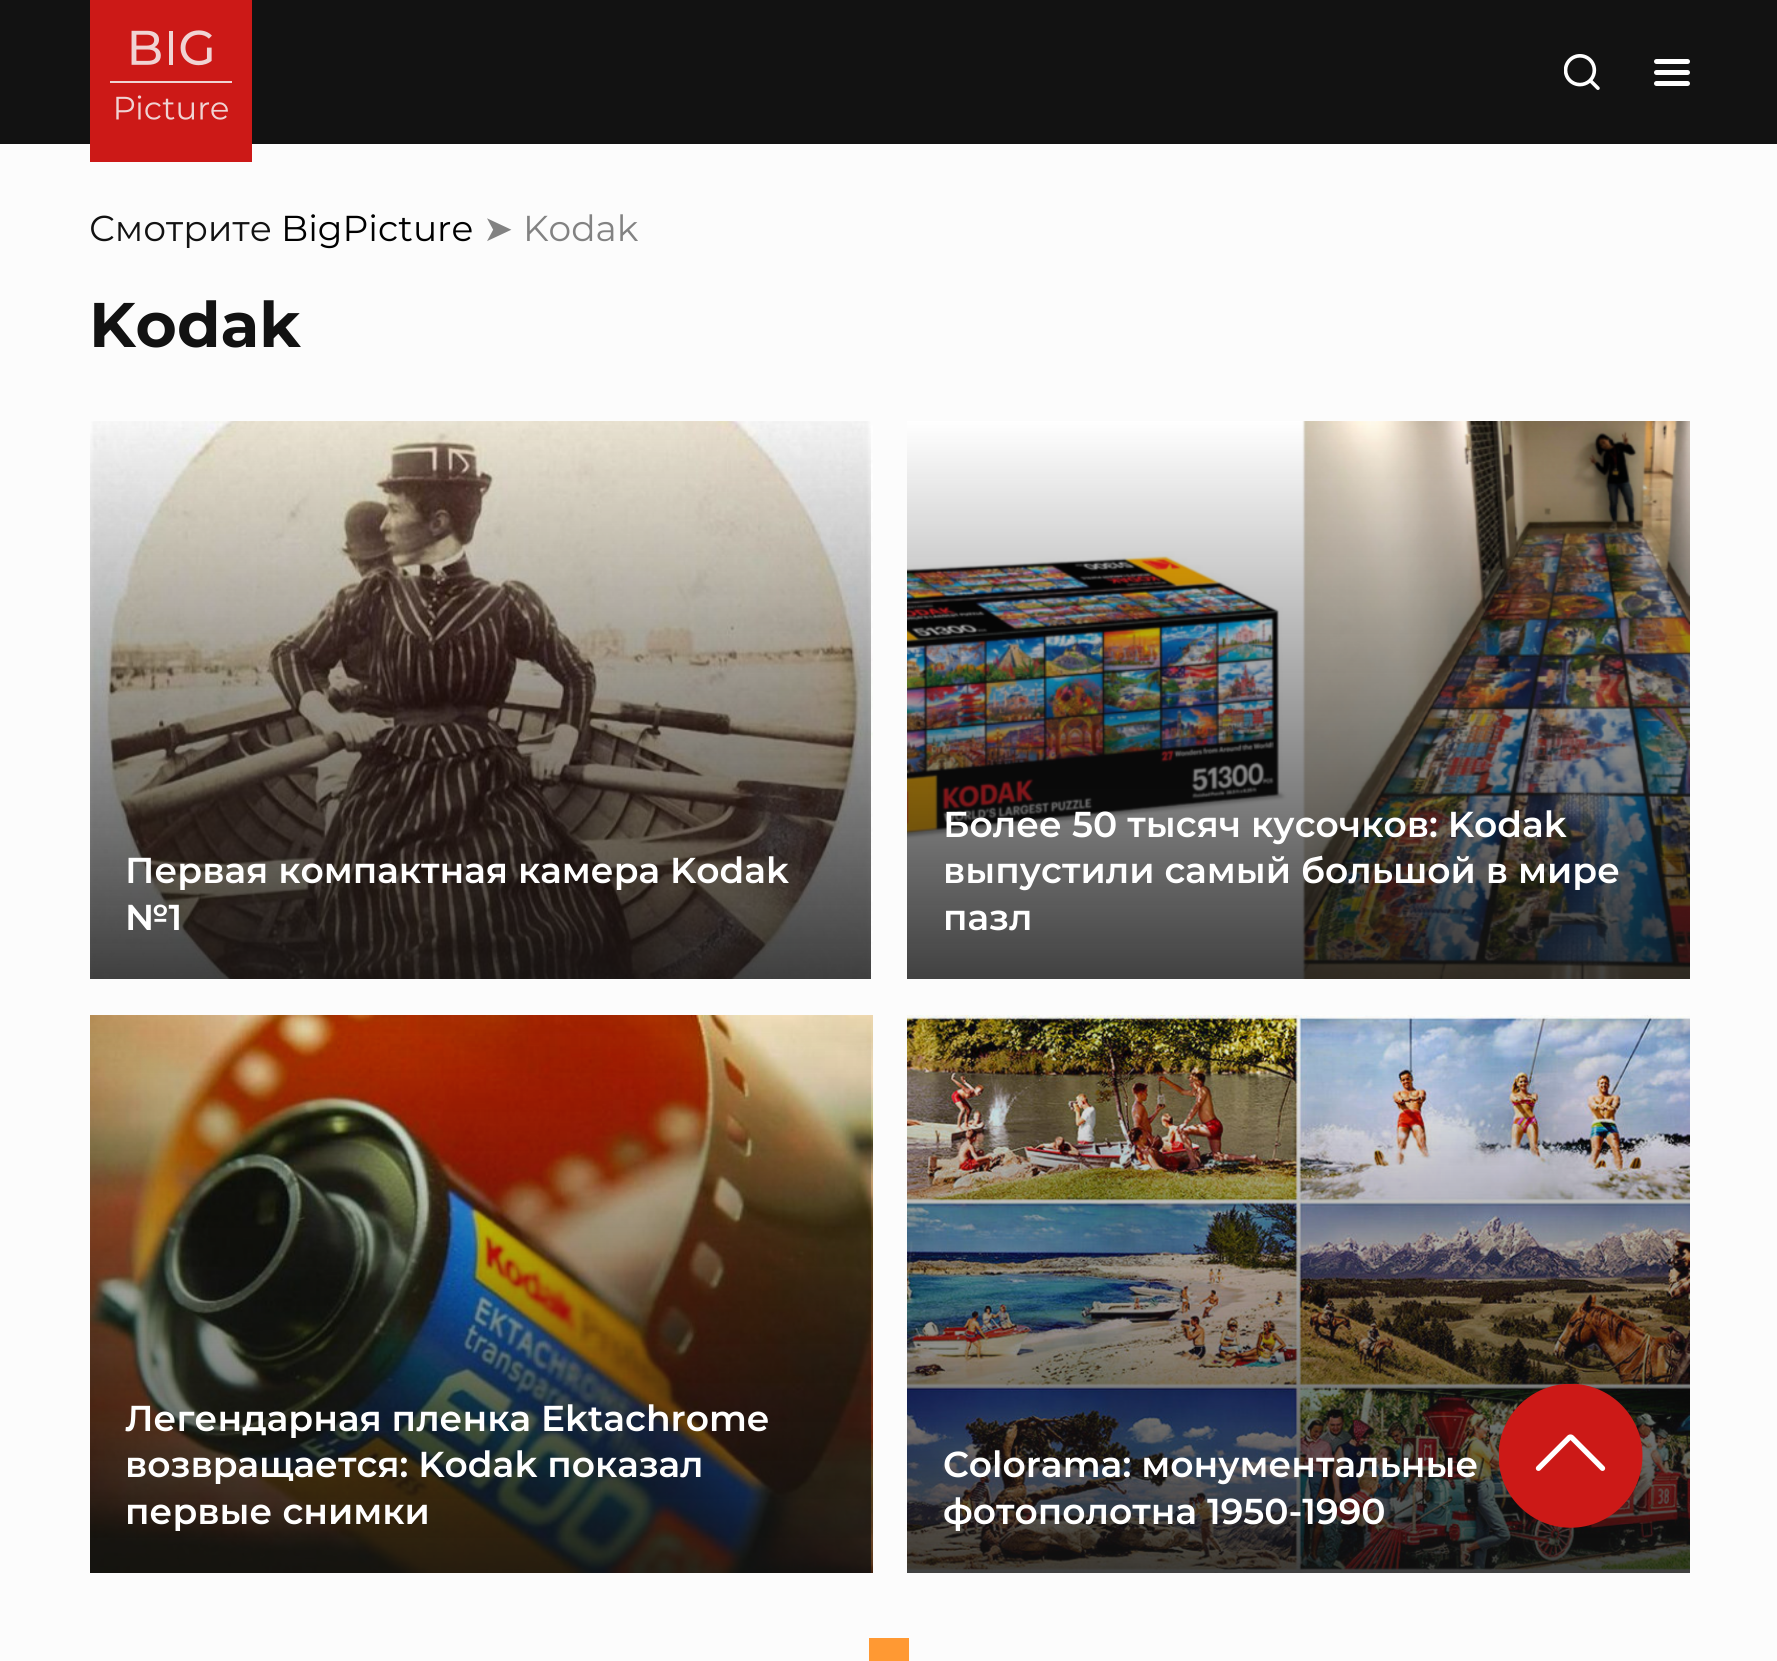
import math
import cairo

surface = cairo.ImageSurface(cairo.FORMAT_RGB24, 1777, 1661)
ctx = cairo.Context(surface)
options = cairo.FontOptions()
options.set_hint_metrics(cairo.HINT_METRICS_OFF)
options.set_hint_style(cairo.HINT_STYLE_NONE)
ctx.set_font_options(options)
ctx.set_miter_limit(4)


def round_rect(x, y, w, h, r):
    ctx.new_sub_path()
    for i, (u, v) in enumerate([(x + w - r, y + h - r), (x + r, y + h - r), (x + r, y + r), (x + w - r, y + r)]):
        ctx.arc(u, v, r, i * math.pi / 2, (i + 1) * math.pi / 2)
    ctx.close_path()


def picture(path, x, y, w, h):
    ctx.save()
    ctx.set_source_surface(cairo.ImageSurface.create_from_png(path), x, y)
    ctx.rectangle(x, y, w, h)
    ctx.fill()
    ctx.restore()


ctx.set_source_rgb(0.988, 0.988, 0.988)
ctx.paint()
ctx.set_source_rgb(0.071, 0.071, 0.071)
ctx.rectangle(0, 0, 1777, 144)
ctx.fill()
picture("img1.png", 90, 0, 162, 162)
picture("img2.png", 1564, 54, 36, 36)
ctx.set_source_rgb(1, 1, 1)
round_rect(1654, 59, 36, 5, 2.5)
ctx.fill()
round_rect(1654, 70, 36, 5, 2.5)
ctx.fill()
round_rect(1654, 81, 36, 5, 2.5)
ctx.fill()
ctx.select_font_face("Montserrat")
ctx.set_font_size(36)
ctx.set_source_rgb(0.071, 0.071, 0.071)
ctx.move_to(89, 241)
ctx.show_text("Смотрите")
ctx.set_source_rgb(0, 0, 0)
ctx.move_to(281, 241)
ctx.show_text("BigPicture")
ctx.select_font_face("DejaVu Sans")
ctx.set_source_rgb(0.51, 0.51, 0.51)
ctx.move_to(483, 241)
ctx.show_text("➤")
ctx.select_font_face("Montserrat")
ctx.move_to(523, 241)
ctx.show_text("Kodak")
ctx.select_font_face("Montserrat", cairo.FONT_SLANT_NORMAL, cairo.FONT_WEIGHT_BOLD)
ctx.set_font_size(63)
ctx.set_source_rgb(0.071, 0.071, 0.071)
ctx.move_to(89, 347)
ctx.show_text("Kodak")
picture("img3.png", 90, 421, 783, 558)
ctx.select_font_face("Montserrat SemiBold")
ctx.set_font_size(36)
ctx.set_source_rgb(1, 1, 1)
ctx.move_to(125, 883)
ctx.show_text("Первая компактная камера Kodak")
ctx.move_to(125, 930)
ctx.show_text("№1")
picture("img4.png", 907, 421, 783, 558)
ctx.move_to(943, 837)
ctx.show_text("Более 50 тысяч кусочков: Kodak")
ctx.move_to(943, 883)
ctx.show_text("выпустили самый большой в мире")
ctx.move_to(943, 930)
ctx.show_text("пазл")
picture("img5.png", 90, 1015, 783, 558)
ctx.move_to(125, 1431)
ctx.show_text("Легендарная пленка Ektachrome")
ctx.move_to(125, 1477)
ctx.show_text("возвращается: Kodak показал")
ctx.move_to(125, 1524)
ctx.show_text("первые снимки")
picture("img6.png", 907, 1015, 783, 558)
ctx.move_to(943, 1477)
ctx.show_text("Colorama: монументальные")
ctx.move_to(943, 1524)
ctx.show_text("фотополотна 1950-1990")
ctx.set_source_rgb(1, 0.6, 0.2)
ctx.rectangle(869, 1638, 40, 23)
ctx.fill()
picture("img7.png", 1499, 1384, 144, 144)
surface.write_to_png("page.png")
